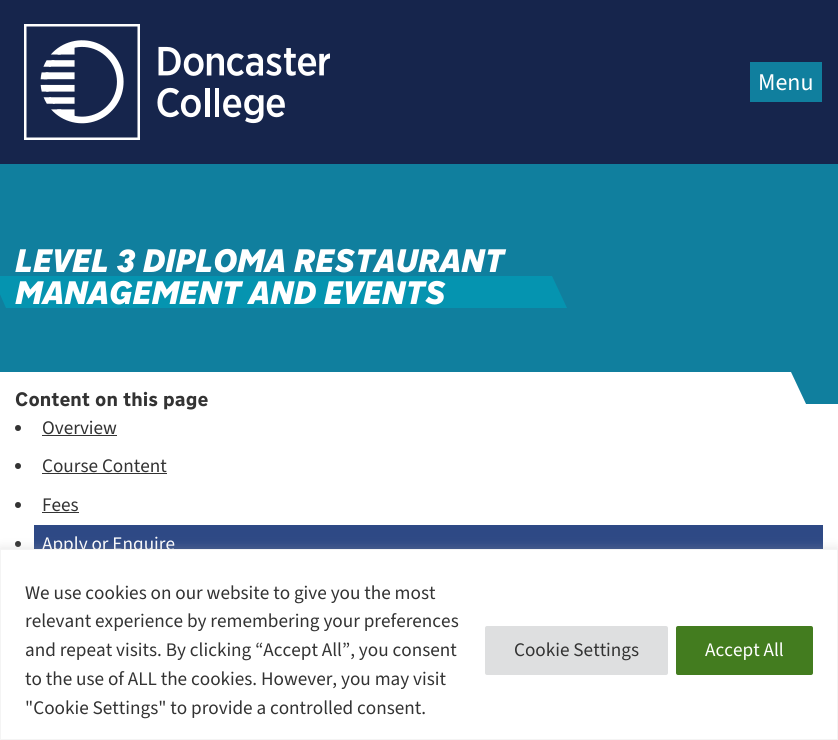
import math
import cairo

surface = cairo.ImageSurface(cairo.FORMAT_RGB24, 838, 740)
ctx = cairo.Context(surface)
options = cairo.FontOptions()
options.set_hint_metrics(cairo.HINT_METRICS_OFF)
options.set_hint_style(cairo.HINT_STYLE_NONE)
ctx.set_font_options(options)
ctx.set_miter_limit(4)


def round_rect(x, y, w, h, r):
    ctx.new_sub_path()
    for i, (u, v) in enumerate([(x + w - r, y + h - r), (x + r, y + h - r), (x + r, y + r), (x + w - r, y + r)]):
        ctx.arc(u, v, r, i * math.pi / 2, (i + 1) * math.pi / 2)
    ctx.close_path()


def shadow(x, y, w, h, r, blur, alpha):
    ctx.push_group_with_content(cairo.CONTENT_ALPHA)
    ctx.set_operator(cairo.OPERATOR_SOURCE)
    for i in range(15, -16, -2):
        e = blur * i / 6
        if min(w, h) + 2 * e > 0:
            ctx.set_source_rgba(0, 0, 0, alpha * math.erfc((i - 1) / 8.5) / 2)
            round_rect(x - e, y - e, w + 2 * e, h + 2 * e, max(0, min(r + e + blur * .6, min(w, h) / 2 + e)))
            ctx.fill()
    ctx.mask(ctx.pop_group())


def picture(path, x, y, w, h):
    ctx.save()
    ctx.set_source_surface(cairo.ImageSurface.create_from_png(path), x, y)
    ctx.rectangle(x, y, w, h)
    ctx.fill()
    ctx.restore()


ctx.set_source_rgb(1, 1, 1)
ctx.paint()
ctx.set_source_rgb(0.086, 0.145, 0.298)
ctx.rectangle(0, 0, 838, 164)
ctx.fill()
picture("img1.png", 24, 24, 306, 116)
ctx.set_source_rgb(0.063, 0.498, 0.62)
ctx.rectangle(750, 62, 72, 40)
ctx.fill()
ctx.select_font_face("Source Sans 3")
ctx.set_font_size(24)
ctx.set_source_rgb(1, 1, 1)
ctx.move_to(758, 90)
ctx.show_text("Menu")
ctx.set_source_rgb(0.063, 0.498, 0.62)
ctx.rectangle(0, 164, 838, 240)
ctx.fill()
ctx.select_font_face("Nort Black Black", cairo.FONT_SLANT_ITALIC)
ctx.set_font_size(32)
ctx.set_source_rgb(1, 1, 1)
ctx.move_to(15, 272)
ctx.show_text("LEVEL 3 DIPLOMA RESTAURANT")
ctx.set_source_rgb(0.02, 0.58, 0.69)
ctx.new_path()
ctx.move_to(-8, 276)
ctx.line_to(552, 276)
ctx.line_to(567, 308)
ctx.line_to(6, 308)
ctx.close_path()
ctx.fill()
ctx.set_source_rgb(1, 1, 1)
ctx.move_to(15, 304)
ctx.show_text("MANAGEMENT AND EVENTS")
ctx.new_path()
ctx.move_to(-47, 372)
ctx.line_to(791, 372)
ctx.line_to(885, 572)
ctx.line_to(47, 572)
ctx.close_path()
ctx.fill()
ctx.select_font_face("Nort", cairo.FONT_SLANT_NORMAL, cairo.FONT_WEIGHT_BOLD)
ctx.set_font_size(19.2)
ctx.set_source_rgb(0.2, 0.2, 0.2)
ctx.move_to(15, 406)
ctx.show_text("Content on this page")
ctx.new_path()
ctx.arc(18, 428, 3, 0, 2 * math.pi)
ctx.fill()
ctx.select_font_face("Source Sans 3")
ctx.move_to(42, 434)
ctx.show_text("Overview")
ctx.rectangle(42, 435, 75, 1)
ctx.fill()
ctx.arc(18, 466, 3, 0, 2 * math.pi)
ctx.fill()
ctx.move_to(42, 472)
ctx.show_text("Course Content")
ctx.rectangle(42, 473, 125, 1)
ctx.fill()
ctx.arc(18, 505, 3, 0, 2 * math.pi)
ctx.fill()
ctx.move_to(42, 511)
ctx.show_text("Fees")
ctx.rectangle(42, 512, 37, 1)
ctx.fill()
ctx.arc(18, 544, 3, 0, 2 * math.pi)
ctx.fill()
ctx.set_source_rgb(0.18, 0.286, 0.522)
ctx.rectangle(34, 525, 789, 24)
ctx.fill()
ctx.set_source_rgb(1, 1, 1)
ctx.move_to(42, 550)
ctx.show_text("Apply or Enquire")
ctx.set_source_rgb(0.675, 0.671, 0.671)
shadow(0, 548, 838, 191, 0, 5, 0.3)
ctx.set_source_rgb(1, 1, 1)
ctx.rectangle(0.5, 549.5, 837, 190)
ctx.fill_preserve()
ctx.set_source_rgb(0.957, 0.957, 0.957)
ctx.set_line_width(1)
ctx.stroke()
ctx.set_source_rgb(0.2, 0.2, 0.2)
ctx.move_to(25, 599)
ctx.show_text("We use cookies on our website to give you the most")
ctx.move_to(25, 627)
ctx.show_text("relevant experience by remembering your preferences")
ctx.move_to(25, 656)
ctx.show_text("and repeat visits. By clicking “Accept All”, you consent")
ctx.move_to(25, 685)
ctx.show_text("to the use of ALL the cookies. However, you may visit")
ctx.move_to(25, 714)
ctx.show_text("\"Cookie Settings\" to provide a controlled consent.")
ctx.set_source_rgb(0.871, 0.875, 0.878)
round_rect(486, 627, 181, 47, 1)
ctx.fill_preserve()
ctx.set_line_width(2)
ctx.stroke()
ctx.set_source_rgb(0.2, 0.2, 0.2)
ctx.move_to(514, 656)
ctx.show_text("Cookie Settings")
ctx.set_source_rgb(0.263, 0.486, 0.122)
round_rect(677, 627, 135, 47, 1)
ctx.fill_preserve()
ctx.stroke()
ctx.set_source_rgb(1, 1, 1)
ctx.move_to(705, 656)
ctx.show_text("Accept All")
surface.write_to_png("page.png")
